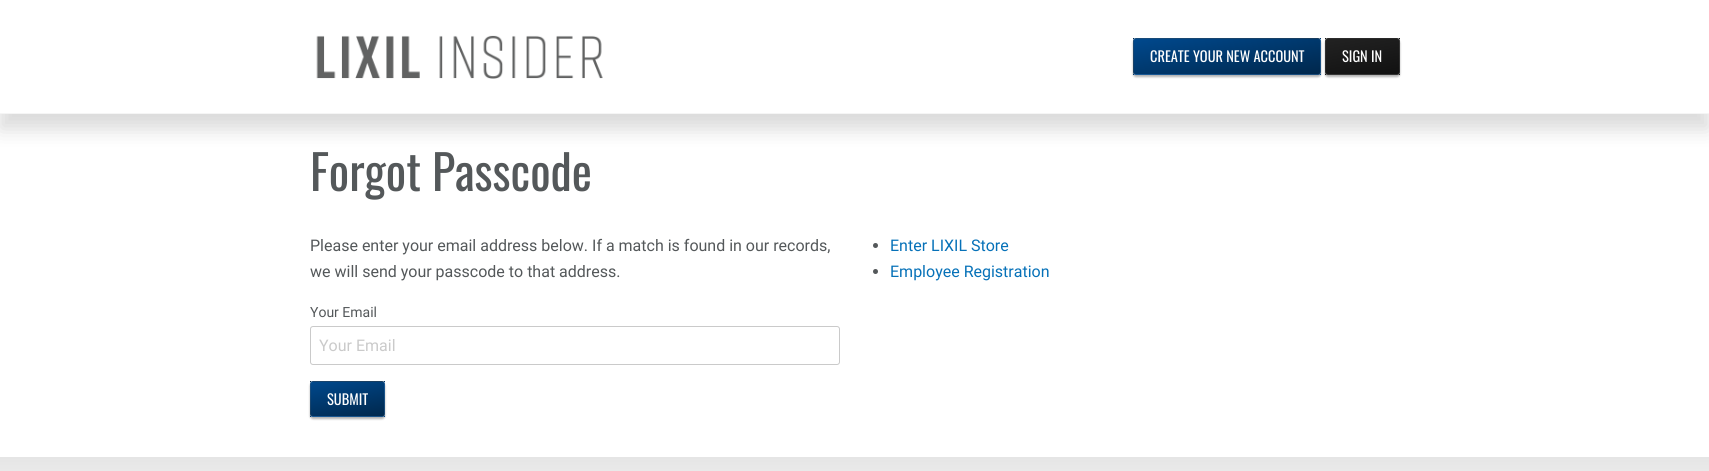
import math
import cairo


def use_color(cr, r, g, b):
  cr.set_source_rgb(r / 255, g / 255, b / 255)

def text(cr, x, y, s, family, size, color, bold=False, italic=False):
  cr.select_font_face(family, cairo.FONT_SLANT_ITALIC if italic else cairo.FONT_SLANT_NORMAL, cairo.FONT_WEIGHT_BOLD if bold else cairo.FONT_WEIGHT_NORMAL)
  cr.set_font_size(size)
  use_color(cr, *color)
  cr.move_to(x, y)
  cr.show_text(s)

def box(cr, x, y, w, h, *color):
  use_color(cr, *color)
  cr.rectangle(x, y, w, h)
  cr.fill()

def round_rect(cr, x, y, w, h, r):
  cr.new_sub_path()
  for i, (u, v) in enumerate([(x + w - r, y + h - r), (x + r, y + h - r), (x + r, y + r), (x + w - r, y + r)]):
    cr.arc(u, v, r, i * math.pi / 2, (i + 1) * math.pi / 2)
  cr.close_path()

def shadow(cr, x, y, w, h, r, blur, alpha):
  cr.push_group_with_content(cairo.CONTENT_ALPHA)
  cr.set_operator(cairo.OPERATOR_SOURCE)
  for i in range(15, -16, -2):
    e = blur * i / 6
    if min(w, h) + 2 * e > 0:
      cr.set_source_rgba(0, 0, 0, alpha * math.erfc((i - 1) / 8.5) / 2)
      round_rect(cr, x - e, y - e, w + 2 * e, h + 2 * e, max(0, min(r + e + blur * .6, min(w, h) / 2 + e)))
      cr.fill()
  cr.mask(cr.pop_group())

def picture(cr, path, x, y, w, h):
  cr.save()
  cr.set_source_surface(cairo.ImageSurface.create_from_png(path), x, y)
  cr.rectangle(x, y, w, h)
  cr.fill()
  cr.restore()

def draw(cr):
  use_color(cr, 255, 255, 255)
  cr.paint()
  use_color(cr, 0, 0, 0)
  shadow(cr, 0, 15, 1709, 114, 0, 10, 0.15)
  box(cr, 0, 0, 1709, 113, 255, 255, 255)
  box(cr, 0, 113, 1709, 1, 245, 245, 245)
  picture(cr, "img_01.png", 316, 35, 287, 44)
  use_color(cr, 0, 0, 0)
  shadow(cr, 1133, 40, 188, 37, 3, 1, 0.3)
  gradient = cairo.LinearGradient(1035, -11, 1047, 54)
  gradient.add_color_stop_rgba(0, 0, 0.282, 0.549, 1)
  gradient.add_color_stop_rgba(1, 0, 0.157, 0.302, 1)
  cr.set_source(gradient)
  cr.rectangle(1133, 38, 1, 1)
  cr.fill()
  cr.save()
  round_rect(cr, 1133, 38, 188, 37, 3)
  cr.clip()
  gradient = cairo.LinearGradient(1221, -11, 1233, 54)
  gradient.add_color_stop_rgba(0, 0, 0.282, 0.549, 1)
  gradient.add_color_stop_rgba(1, 0, 0.157, 0.302, 1)
  cr.set_source(gradient)
  cr.rectangle(1134, 38, 186, 1)
  cr.fill()
  cr.restore()
  gradient = cairo.LinearGradient(1407, -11, 1419, 54)
  gradient.add_color_stop_rgba(0, 0, 0.282, 0.549, 1)
  gradient.add_color_stop_rgba(1, 0, 0.157, 0.302, 1)
  cr.set_source(gradient)
  cr.rectangle(1320, 38, 1, 1)
  cr.fill()
  cr.save()
  round_rect(cr, 1133, 38, 188, 37, 3)
  cr.clip()
  gradient = cairo.LinearGradient(1035, 24, 1047, 89)
  gradient.add_color_stop_rgba(0, 0, 0.282, 0.549, 1)
  gradient.add_color_stop_rgba(1, 0, 0.157, 0.302, 1)
  cr.set_source(gradient)
  cr.rectangle(1133, 39, 1, 35)
  cr.fill()
  cr.restore()
  gradient = cairo.LinearGradient(1221, 24, 1233, 89)
  gradient.add_color_stop_rgba(0, 0, 0.282, 0.549, 1)
  gradient.add_color_stop_rgba(1, 0, 0.157, 0.302, 1)
  cr.set_source(gradient)
  cr.rectangle(1134, 39, 186, 35)
  cr.fill()
  cr.save()
  round_rect(cr, 1133, 38, 188, 37, 3)
  cr.clip()
  gradient = cairo.LinearGradient(1407, 24, 1419, 89)
  gradient.add_color_stop_rgba(0, 0, 0.282, 0.549, 1)
  gradient.add_color_stop_rgba(1, 0, 0.157, 0.302, 1)
  cr.set_source(gradient)
  cr.rectangle(1320, 39, 1, 35)
  cr.fill()
  cr.restore()
  gradient = cairo.LinearGradient(1035, 59, 1047, 124)
  gradient.add_color_stop_rgba(0, 0, 0.282, 0.549, 1)
  gradient.add_color_stop_rgba(1, 0, 0.157, 0.302, 1)
  cr.set_source(gradient)
  cr.rectangle(1133, 74, 1, 1)
  cr.fill()
  cr.save()
  round_rect(cr, 1133, 38, 188, 37, 3)
  cr.clip()
  gradient = cairo.LinearGradient(1221, 59, 1233, 124)
  gradient.add_color_stop_rgba(0, 0, 0.282, 0.549, 1)
  gradient.add_color_stop_rgba(1, 0, 0.157, 0.302, 1)
  cr.set_source(gradient)
  cr.rectangle(1134, 74, 186, 1)
  cr.fill()
  cr.restore()
  gradient = cairo.LinearGradient(1407, 59, 1419, 124)
  gradient.add_color_stop_rgba(0, 0, 0.282, 0.549, 1)
  gradient.add_color_stop_rgba(1, 0, 0.157, 0.302, 1)
  cr.set_source(gradient)
  cr.rectangle(1320, 74, 1, 1)
  cr.fill()
  round_rect(cr, 1133.5, 38.5, 187, 36, 2.5)
  cr.set_source_rgba(1, 1, 1, 0.1)
  cr.set_line_width(1)
  cr.stroke()
  use_color(cr, 0, 0, 0)
  shadow(cr, 1325, 40, 75, 37, 3, 1, 0.3)
  gradient = cairo.LinearGradient(1285, -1.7, 1294, 45)
  gradient.add_color_stop_rgba(0, 0.133, 0.133, 0.133, 1)
  gradient.add_color_stop_rgba(1, 0.067, 0.067, 0.067, 1)
  cr.set_source(gradient)
  cr.rectangle(1325, 38, 1, 1)
  cr.fill()
  cr.save()
  round_rect(cr, 1325, 38, 75, 37, 3)
  cr.clip()
  gradient = cairo.LinearGradient(1358, -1.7, 1367, 45)
  gradient.add_color_stop_rgba(0, 0.133, 0.133, 0.133, 1)
  gradient.add_color_stop_rgba(1, 0.067, 0.067, 0.067, 1)
  cr.set_source(gradient)
  cr.rectangle(1326, 38, 73, 1)
  cr.fill()
  cr.restore()
  gradient = cairo.LinearGradient(1431, -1.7, 1440, 45)
  gradient.add_color_stop_rgba(0, 0.133, 0.133, 0.133, 1)
  gradient.add_color_stop_rgba(1, 0.067, 0.067, 0.067, 1)
  cr.set_source(gradient)
  cr.rectangle(1399, 38, 1, 1)
  cr.fill()
  cr.save()
  round_rect(cr, 1325, 38, 75, 37, 3)
  cr.clip()
  gradient = cairo.LinearGradient(1285, 33, 1294, 80)
  gradient.add_color_stop_rgba(0, 0.133, 0.133, 0.133, 1)
  gradient.add_color_stop_rgba(1, 0.067, 0.067, 0.067, 1)
  cr.set_source(gradient)
  cr.rectangle(1325, 39, 1, 35)
  cr.fill()
  cr.restore()
  gradient = cairo.LinearGradient(1358, 33, 1367, 80)
  gradient.add_color_stop_rgba(0, 0.133, 0.133, 0.133, 1)
  gradient.add_color_stop_rgba(1, 0.067, 0.067, 0.067, 1)
  cr.set_source(gradient)
  cr.rectangle(1326, 39, 73, 35)
  cr.fill()
  cr.save()
  round_rect(cr, 1325, 38, 75, 37, 3)
  cr.clip()
  gradient = cairo.LinearGradient(1431, 33, 1440, 80)
  gradient.add_color_stop_rgba(0, 0.133, 0.133, 0.133, 1)
  gradient.add_color_stop_rgba(1, 0.067, 0.067, 0.067, 1)
  cr.set_source(gradient)
  cr.rectangle(1399, 39, 1, 35)
  cr.fill()
  cr.restore()
  gradient = cairo.LinearGradient(1285, 68, 1294, 115)
  gradient.add_color_stop_rgba(0, 0.133, 0.133, 0.133, 1)
  gradient.add_color_stop_rgba(1, 0.067, 0.067, 0.067, 1)
  cr.set_source(gradient)
  cr.rectangle(1325, 74, 1, 1)
  cr.fill()
  cr.save()
  round_rect(cr, 1325, 38, 75, 37, 3)
  cr.clip()
  gradient = cairo.LinearGradient(1358, 68, 1367, 115)
  gradient.add_color_stop_rgba(0, 0.133, 0.133, 0.133, 1)
  gradient.add_color_stop_rgba(1, 0.067, 0.067, 0.067, 1)
  cr.set_source(gradient)
  cr.rectangle(1326, 74, 73, 1)
  cr.fill()
  cr.restore()
  gradient = cairo.LinearGradient(1431, 68, 1440, 115)
  gradient.add_color_stop_rgba(0, 0.133, 0.133, 0.133, 1)
  gradient.add_color_stop_rgba(1, 0.067, 0.067, 0.067, 1)
  cr.set_source(gradient)
  cr.rectangle(1399, 74, 1, 1)
  cr.fill()
  round_rect(cr, 1325.5, 38.5, 74, 36, 2.5)
  cr.set_source_rgba(1, 1, 1, 0.1)
  cr.stroke()
  use_color(cr, 84, 88, 90)
  cr.arc(875.5, 245.5, 2.5, 0, 2 * math.pi)
  cr.fill()
  cr.arc(875.5, 271.5, 2.5, 0, 2 * math.pi)
  cr.fill()
  round_rect(cr, 310.5, 326.5, 529, 38, 2.5)
  use_color(cr, 202, 202, 202)
  cr.stroke()
  use_color(cr, 0, 0, 0)
  shadow(cr, 310, 383, 75, 36, 3, 1, 0.3)
  gradient = cairo.LinearGradient(270, 342, 279, 388)
  gradient.add_color_stop_rgba(0, 0, 0.282, 0.549, 1)
  gradient.add_color_stop_rgba(1, 0, 0.157, 0.302, 1)
  cr.set_source(gradient)
  cr.rectangle(310, 381, 1, 1)
  cr.fill()
  cr.save()
  round_rect(cr, 310, 381, 75, 36, 3)
  cr.clip()
  gradient = cairo.LinearGradient(343, 342, 352, 388)
  gradient.add_color_stop_rgba(0, 0, 0.282, 0.549, 1)
  gradient.add_color_stop_rgba(1, 0, 0.157, 0.302, 1)
  cr.set_source(gradient)
  cr.rectangle(311, 381, 73, 1)
  cr.fill()
  cr.restore()
  gradient = cairo.LinearGradient(416, 342, 425, 388)
  gradient.add_color_stop_rgba(0, 0, 0.282, 0.549, 1)
  gradient.add_color_stop_rgba(1, 0, 0.157, 0.302, 1)
  cr.set_source(gradient)
  cr.rectangle(384, 381, 1, 1)
  cr.fill()
  cr.save()
  round_rect(cr, 310, 381, 75, 36, 3)
  cr.clip()
  gradient = cairo.LinearGradient(270, 376, 279, 422)
  gradient.add_color_stop_rgba(0, 0, 0.282, 0.549, 1)
  gradient.add_color_stop_rgba(1, 0, 0.157, 0.302, 1)
  cr.set_source(gradient)
  cr.rectangle(310, 382, 1, 34)
  cr.fill()
  cr.restore()
  gradient = cairo.LinearGradient(343, 376, 352, 422)
  gradient.add_color_stop_rgba(0, 0, 0.282, 0.549, 1)
  gradient.add_color_stop_rgba(1, 0, 0.157, 0.302, 1)
  cr.set_source(gradient)
  cr.rectangle(311, 382, 73, 34)
  cr.fill()
  cr.save()
  round_rect(cr, 310, 381, 75, 36, 3)
  cr.clip()
  gradient = cairo.LinearGradient(416, 376, 425, 422)
  gradient.add_color_stop_rgba(0, 0, 0.282, 0.549, 1)
  gradient.add_color_stop_rgba(1, 0, 0.157, 0.302, 1)
  cr.set_source(gradient)
  cr.rectangle(384, 382, 1, 34)
  cr.fill()
  cr.restore()
  gradient = cairo.LinearGradient(270, 410, 279, 456)
  gradient.add_color_stop_rgba(0, 0, 0.282, 0.549, 1)
  gradient.add_color_stop_rgba(1, 0, 0.157, 0.302, 1)
  cr.set_source(gradient)
  cr.rectangle(310, 416, 1, 1)
  cr.fill()
  cr.save()
  round_rect(cr, 310, 381, 75, 36, 3)
  cr.clip()
  gradient = cairo.LinearGradient(343, 410, 352, 456)
  gradient.add_color_stop_rgba(0, 0, 0.282, 0.549, 1)
  gradient.add_color_stop_rgba(1, 0, 0.157, 0.302, 1)
  cr.set_source(gradient)
  cr.rectangle(311, 416, 73, 1)
  cr.fill()
  cr.restore()
  gradient = cairo.LinearGradient(416, 410, 425, 456)
  gradient.add_color_stop_rgba(0, 0, 0.282, 0.549, 1)
  gradient.add_color_stop_rgba(1, 0, 0.157, 0.302, 1)
  cr.set_source(gradient)
  cr.rectangle(384, 416, 1, 1)
  cr.fill()
  round_rect(cr, 310.5, 381.5, 74, 35, 2.5)
  cr.set_source_rgba(1, 1, 1, 0.1)
  cr.stroke()
  gradient = cairo.LinearGradient(855, 457, 855, 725)
  gradient.add_color_stop_rgba(0, 0.898, 0.898, 0.898, 1)
  gradient.add_color_stop_rgba(0.2, 0.961, 0.961, 0.961, 1)
  cr.set_source(gradient)
  cr.rectangle(0, 457, 1709, 14)
  cr.fill()
  text(cr, 1150, 62, "CREATE YOUR NEW ACCOUNT", "Oswald", 14.4, (254, 254, 254))
  text(cr, 1342, 62, "SIGN IN", "Oswald", 14.4, (254, 254, 254))
  text(cr, 310, 191, "Forgot Passcode", "Oswald", 48, (84, 88, 90))
  text(cr, 310, 251, "Please enter your email address below. If a match is found in our records,", "Roboto", 16, (84, 88, 90))
  text(cr, 310, 277, "we will send your passcode to that address.", "Roboto", 16, (84, 88, 90))
  text(cr, 890, 251, "Enter LIXIL Store", "Roboto", 16, (6, 113, 184))
  text(cr, 890, 277, "Employee Registration", "Roboto", 16, (6, 113, 184))
  text(cr, 310, 317, "Your Email", "Roboto", 14, (84, 88, 90))
  text(cr, 319, 351, "Your Email", "Roboto", 16, (202, 202, 202))
  text(cr, 327, 405, "SUBMIT", "Oswald", 14.4, (254, 254, 254))


surface = cairo.ImageSurface(cairo.FORMAT_RGB24, 1709, 471)
cr = cairo.Context(surface)
options = cairo.FontOptions()
options.set_hint_metrics(cairo.HINT_METRICS_OFF)
options.set_hint_style(cairo.HINT_STYLE_NONE)
cr.set_font_options(options)
cr.set_miter_limit(4)
draw(cr)
surface.write_to_png("out.png")
